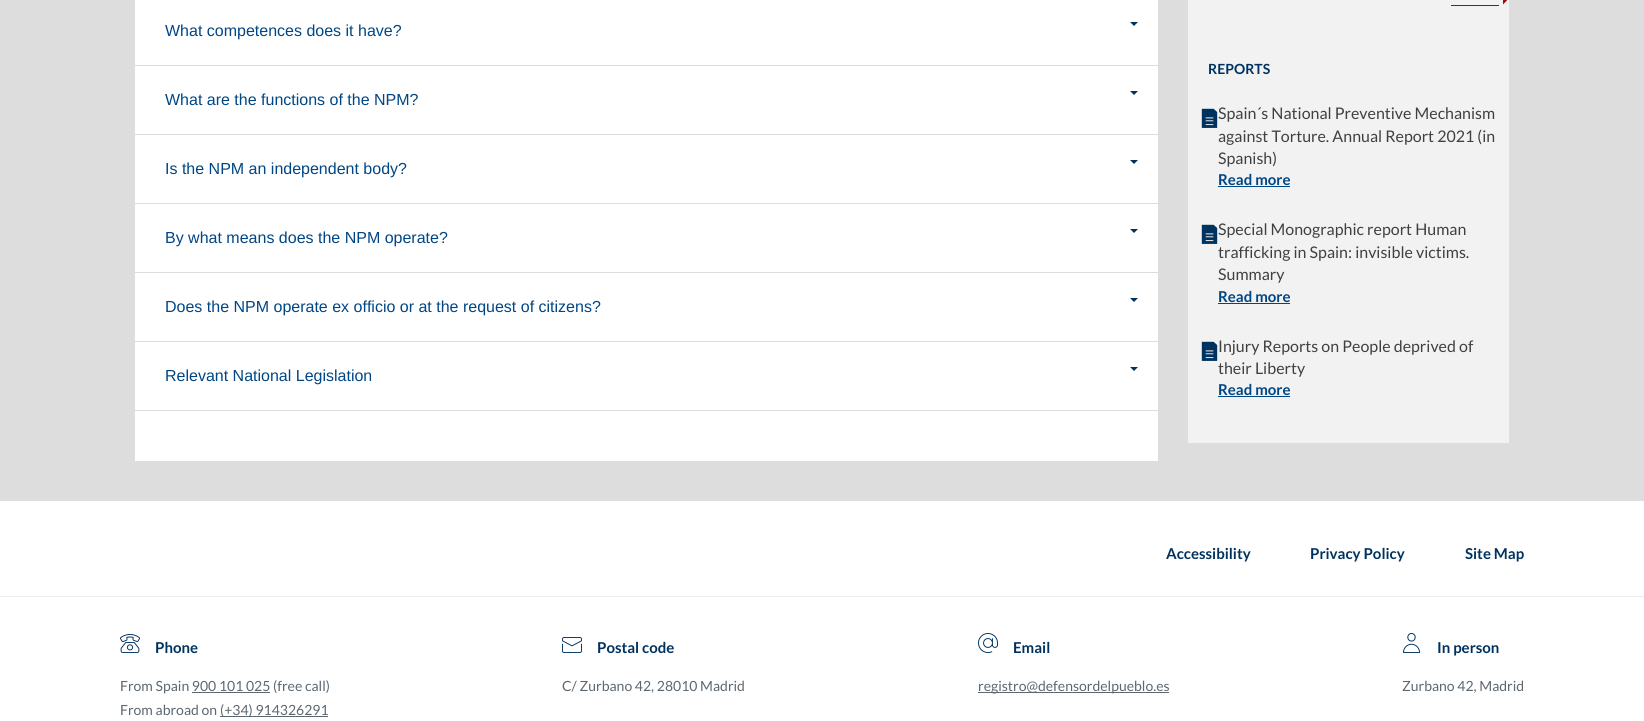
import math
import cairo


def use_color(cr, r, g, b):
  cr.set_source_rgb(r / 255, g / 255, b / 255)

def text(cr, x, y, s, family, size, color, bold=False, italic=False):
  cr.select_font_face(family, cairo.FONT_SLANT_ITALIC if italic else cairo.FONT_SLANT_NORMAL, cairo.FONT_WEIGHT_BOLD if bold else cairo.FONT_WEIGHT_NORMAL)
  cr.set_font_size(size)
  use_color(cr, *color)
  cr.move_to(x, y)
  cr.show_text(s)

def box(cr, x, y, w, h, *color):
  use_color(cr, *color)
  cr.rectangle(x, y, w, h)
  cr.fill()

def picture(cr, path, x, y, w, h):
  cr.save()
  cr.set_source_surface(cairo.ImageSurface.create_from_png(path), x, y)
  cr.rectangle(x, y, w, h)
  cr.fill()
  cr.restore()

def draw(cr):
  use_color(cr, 221, 221, 221)
  cr.paint()
  box(cr, 135, 0, 1023, 461, 255, 255, 255)
  use_color(cr, 0, 50, 95)
  cr.new_path()
  cr.move_to(1130, 22)
  cr.line_to(1138, 22)
  cr.line_to(1134, 26)
  cr.close_path()
  cr.fill()
  box(cr, 135, 65, 1023, 1, 221, 221, 221)
  use_color(cr, 0, 50, 95)
  cr.new_path()
  cr.move_to(1130, 91)
  cr.line_to(1138, 91)
  cr.line_to(1134, 95)
  cr.close_path()
  cr.fill()
  box(cr, 135, 134, 1023, 1, 221, 221, 221)
  use_color(cr, 0, 50, 95)
  cr.new_path()
  cr.move_to(1130, 160)
  cr.line_to(1138, 160)
  cr.line_to(1134, 164)
  cr.close_path()
  cr.fill()
  box(cr, 135, 203, 1023, 1, 221, 221, 221)
  use_color(cr, 0, 50, 95)
  cr.new_path()
  cr.move_to(1130, 229)
  cr.line_to(1138, 229)
  cr.line_to(1134, 233)
  cr.close_path()
  cr.fill()
  box(cr, 135, 272, 1023, 1, 221, 221, 221)
  use_color(cr, 0, 50, 95)
  cr.new_path()
  cr.move_to(1130, 298)
  cr.line_to(1138, 298)
  cr.line_to(1134, 302)
  cr.close_path()
  cr.fill()
  box(cr, 135, 341, 1023, 1, 221, 221, 221)
  box(cr, 135, 410, 1023, 1, 221, 221, 221)
  use_color(cr, 0, 50, 95)
  cr.new_path()
  cr.move_to(1130, 367)
  cr.line_to(1138, 367)
  cr.line_to(1134, 371)
  cr.close_path()
  cr.fill()
  box(cr, 1188, 0, 321, 443, 242, 242, 242)
  use_color(cr, 156, 12, 12)
  cr.new_path()
  cr.move_to(1503, 4.5)
  cr.line_to(1503, -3.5)
  cr.line_to(1507, 0.5)
  cr.close_path()
  cr.fill()
  box(cr, 1451, 5, 48, 1, 156, 12, 12)
  picture(cr, "img_01.png", 1201, 108, 17, 20)
  box(cr, 1218, 186, 72, 1, 0, 70, 133)
  picture(cr, "img_01.png", 1201, 224, 17, 20)
  box(cr, 1218, 303, 72, 1, 0, 70, 133)
  picture(cr, "img_01.png", 1201, 341, 17, 20)
  box(cr, 1218, 396, 72, 1, 0, 70, 133)
  box(cr, 0, 501, 1644, 220, 255, 255, 255)
  box(cr, 0, 596, 1644, 1, 238, 238, 238)
  picture(cr, "img_02.png", 120, 634, 20, 19)
  box(cr, 192, 692, 78, 1, 92, 103, 113)
  box(cr, 220, 716, 108, 1, 92, 103, 113)
  picture(cr, "img_03.png", 562, 637, 20, 16)
  picture(cr, "img_04.png", 978, 633, 20, 20)
  box(cr, 978, 692, 191, 1, 92, 103, 113)
  picture(cr, "img_05.png", 1403, 633, 17, 20)
  text(cr, 165, 36, "What competences does it have?", "Liberation Sans", 16, (0, 70, 133))
  text(cr, 165, 105, "What are the functions of the NPM?", "Liberation Sans", 16, (0, 70, 133))
  text(cr, 165, 174, "Is the NPM an independent body?", "Liberation Sans", 16, (0, 70, 133))
  text(cr, 165, 243, "By what means does the NPM operate?", "Liberation Sans", 16, (0, 70, 133))
  text(cr, 165, 312, "Does the NPM operate ex officio or at the request of citizens?", "Liberation Sans", 16, (0, 70, 133))
  text(cr, 165, 381, "Relevant National Legislation", "Liberation Sans", 16, (0, 70, 133))
  text(cr, 1208, 74, "REPORTS", "Lato", 14, (0, 50, 95), bold=True)
  text(cr, 1218, 119, "Spain´s National Preventive Mechanism", "Lato", 16, (64, 64, 64))
  text(cr, 1218, 142, "against Torture. Annual Report 2021 (in", "Lato", 16, (64, 64, 64))
  text(cr, 1218, 164, "Spanish)", "Lato", 16, (64, 64, 64))
  text(cr, 1218, 185, "Read more", "Lato", 15, (0, 70, 133), bold=True)
  text(cr, 1218, 235, "Special Monographic report Human", "Lato", 16, (64, 64, 64))
  text(cr, 1218, 258, "trafficking in Spain: invisible victims.", "Lato", 16, (64, 64, 64))
  text(cr, 1218, 280, "Summary", "Lato", 16, (64, 64, 64))
  text(cr, 1218, 302, "Read more", "Lato", 15, (0, 70, 133), bold=True)
  text(cr, 1218, 352, "Injury Reports on People deprived of", "Lato", 16, (64, 64, 64))
  text(cr, 1218, 374, "their Liberty", "Lato", 16, (64, 64, 64))
  text(cr, 1218, 395, "Read more", "Lato", 15, (0, 70, 133), bold=True)
  text(cr, 1166, 559, "Accessibility", "Lato", 15, (0, 50, 95), bold=True)
  text(cr, 1310, 559, "Privacy Policy", "Lato", 15, (0, 50, 95), bold=True)
  text(cr, 1465, 559, "Site Map", "Lato", 15, (0, 50, 95), bold=True)
  text(cr, 155, 653, "Phone", "Lato", 15, (0, 50, 95), bold=True)
  text(cr, 120, 691, "From Spain 900 101 025 (free call)", "Lato", 14, (92, 103, 113))
  text(cr, 120, 715, "From abroad on", "Lato", 14, (92, 103, 113))
  text(cr, 220, 715, "(+34) 914326291", "Lato", 14, (92, 103, 113))
  text(cr, 597, 653, "Postal code", "Lato", 15, (0, 50, 95), bold=True)
  text(cr, 562, 691, "C/ Zurbano 42, 28010 Madrid", "Lato", 14, (92, 103, 113))
  text(cr, 1013, 653, "Email", "Lato", 15, (0, 50, 95), bold=True)
  text(cr, 978, 691, "registro@defensordelpueblo.es", "Lato", 14, (92, 103, 113))
  text(cr, 1437, 653, "In person", "Lato", 15, (0, 50, 95), bold=True)
  text(cr, 1402, 691, "Zurbano 42, Madrid", "Lato", 14, (92, 103, 113))


surface = cairo.ImageSurface(cairo.FORMAT_RGB24, 1644, 721)
cr = cairo.Context(surface)
options = cairo.FontOptions()
options.set_hint_metrics(cairo.HINT_METRICS_OFF)
options.set_hint_style(cairo.HINT_STYLE_NONE)
cr.set_font_options(options)
cr.set_miter_limit(4)
draw(cr)
surface.write_to_png("out.png")
